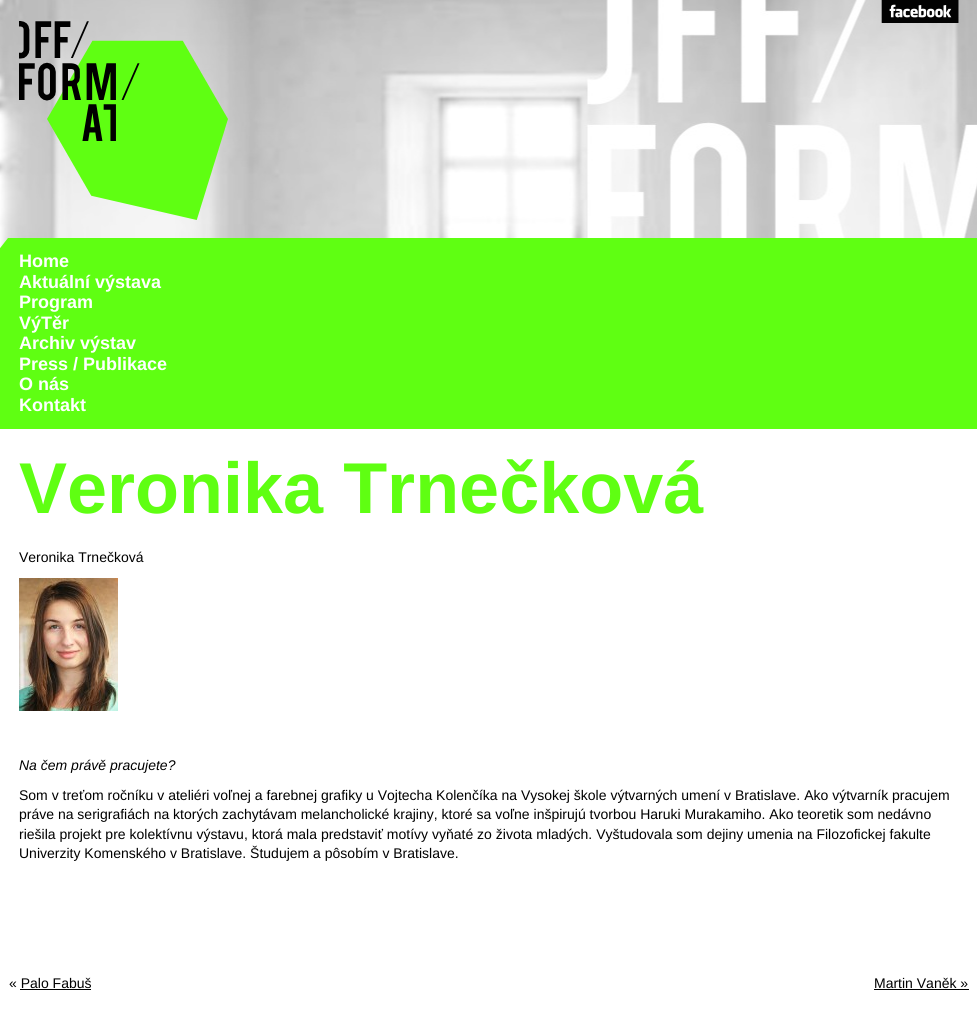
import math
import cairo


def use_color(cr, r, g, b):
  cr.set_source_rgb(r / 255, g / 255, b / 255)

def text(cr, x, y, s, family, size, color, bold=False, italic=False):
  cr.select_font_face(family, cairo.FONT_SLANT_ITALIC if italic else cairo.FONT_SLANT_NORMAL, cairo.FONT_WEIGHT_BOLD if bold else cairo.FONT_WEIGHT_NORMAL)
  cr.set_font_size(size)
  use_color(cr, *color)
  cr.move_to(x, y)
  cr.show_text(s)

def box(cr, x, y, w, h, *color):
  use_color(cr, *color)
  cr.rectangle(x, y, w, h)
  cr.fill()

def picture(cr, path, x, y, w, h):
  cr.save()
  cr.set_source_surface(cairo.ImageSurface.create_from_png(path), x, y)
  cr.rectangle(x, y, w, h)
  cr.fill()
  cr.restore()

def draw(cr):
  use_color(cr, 255, 255, 255)
  cr.paint()
  picture(cr, "img_01.png", 0, 0, 977, 249)
  picture(cr, "img_02.png", 882, 0, 76, 23)
  picture(cr, "img_03.png", 19, 21, 209, 199)
  use_color(cr, 95, 255, 18)
  cr.new_path()
  cr.move_to(-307, 338)
  cr.line_to(-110, 388)
  cr.line_to(8, 238)
  cr.line_to(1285, 238)
  cr.line_to(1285, 429)
  cr.line_to(-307, 429)
  cr.close_path()
  cr.fill()
  picture(cr, "img_04.png", 19, 578, 99, 133)
  box(cr, 20, 989, 71, 1, 0, 0, 0)
  box(cr, 874, 989, 95, 1, 0, 0, 0)
  text(cr, 19, 267, "Home", "Liberation Sans", 18, (255, 255, 255), bold=True)
  text(cr, 19, 288, "Aktuální výstava", "Liberation Sans", 18, (255, 255, 255), bold=True)
  text(cr, 19, 308, "Program", "Liberation Sans", 18, (255, 255, 255), bold=True)
  text(cr, 19, 329, "VýTěr", "Liberation Sans", 18, (255, 255, 255), bold=True)
  text(cr, 19, 349, "Archiv výstav", "Liberation Sans", 18, (255, 255, 255), bold=True)
  text(cr, 19, 370, "Press / Publikace", "Liberation Sans", 18, (255, 255, 255), bold=True)
  text(cr, 19, 390, "O nás", "Liberation Sans", 18, (255, 255, 255), bold=True)
  text(cr, 19, 411, "Kontakt", "Liberation Sans", 18, (255, 255, 255), bold=True)
  text(cr, 19, 513, "Veronika Trnečková", "Liberation Sans", 72, (95, 255, 18), bold=True)
  text(cr, 19, 562, "Veronika Trnečková", "Liberation Sans", 14, (0, 0, 0))
  text(cr, 19, 770, "Na čem právě pracujete?", "Liberation Sans", 14, (0, 0, 0), italic=True)
  text(cr, 19, 800, "Som v treťom ročníku v ateliéri voľnej a farebnej grafiky u Vojtecha Kolenčíka na Vysokej škole výtvarných umení v Bratislave. Ako výtvarník pracujem", "Liberation Sans", 14, (0, 0, 0))
  text(cr, 19, 819, "práve na serigrafiách na ktorých zachytávam melancholické krajiny, ktoré sa voľne inšpirujú tvorbou Haruki Murakamiho. Ako teoretik som nedávno", "Liberation Sans", 14, (0, 0, 0))
  text(cr, 19, 839, "riešila projekt pre kolektívnu výstavu, ktorá mala predstaviť motívy vyňaté zo života mladých. Vyštudovala som dejiny umenia na Filozofickej fakulte", "Liberation Sans", 14, (0, 0, 0))
  text(cr, 19, 858, "Univerzity Komenského v Bratislave. Študujem a pôsobím v Bratislave.", "Liberation Sans", 14, (0, 0, 0))
  text(cr, 9, 988, "« Palo Fabuš", "Liberation Sans", 14, (0, 0, 0))
  text(cr, 874, 988, "Martin Vaněk »", "Liberation Sans", 14, (0, 0, 0))


surface = cairo.ImageSurface(cairo.FORMAT_RGB24, 977, 1014)
cr = cairo.Context(surface)
options = cairo.FontOptions()
options.set_hint_metrics(cairo.HINT_METRICS_OFF)
options.set_hint_style(cairo.HINT_STYLE_NONE)
cr.set_font_options(options)
cr.set_miter_limit(4)
draw(cr)
surface.write_to_png("out.png")
